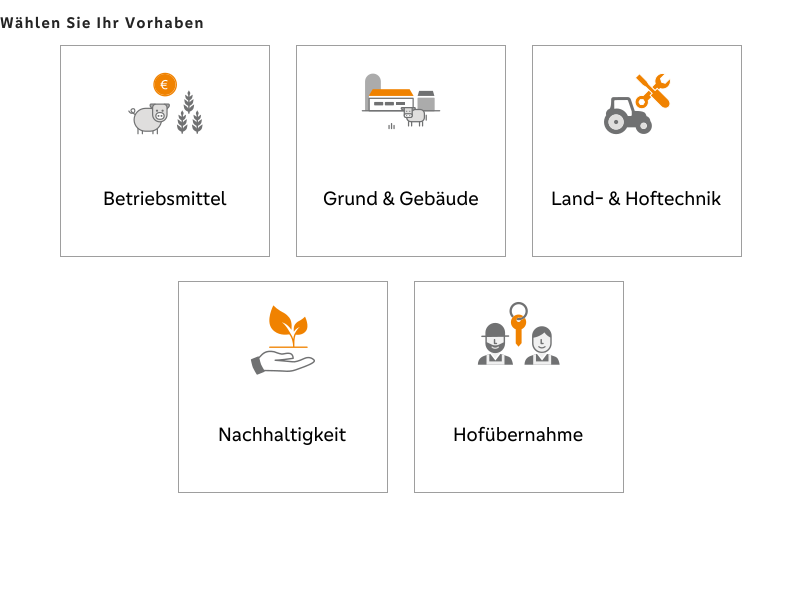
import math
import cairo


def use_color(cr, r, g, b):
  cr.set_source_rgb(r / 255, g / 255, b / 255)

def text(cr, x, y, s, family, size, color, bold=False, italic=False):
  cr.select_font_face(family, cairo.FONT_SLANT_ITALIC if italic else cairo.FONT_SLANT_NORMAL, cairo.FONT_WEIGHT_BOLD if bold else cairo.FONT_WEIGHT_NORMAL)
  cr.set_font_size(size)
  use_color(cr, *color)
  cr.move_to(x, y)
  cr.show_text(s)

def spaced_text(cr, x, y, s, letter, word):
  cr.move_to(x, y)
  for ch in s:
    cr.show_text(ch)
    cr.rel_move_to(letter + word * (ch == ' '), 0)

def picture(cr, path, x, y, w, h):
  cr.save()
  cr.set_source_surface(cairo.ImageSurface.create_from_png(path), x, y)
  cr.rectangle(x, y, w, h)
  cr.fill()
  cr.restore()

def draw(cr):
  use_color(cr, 255, 255, 255)
  cr.paint()
  cr.rectangle(60.5, 45.5, 209, 211)
  use_color(cr, 158, 158, 158)
  cr.set_line_width(1)
  cr.stroke()
  picture(cr, "img_01.png", 128, 72, 75, 63)
  cr.rectangle(296.5, 45.5, 209, 211)
  cr.stroke()
  picture(cr, "img_02.png", 361, 73, 80, 57)
  cr.rectangle(532.5, 45.5, 209, 211)
  cr.stroke()
  picture(cr, "img_03.png", 604, 73, 67, 62)
  cr.rectangle(178.5, 281.5, 209, 211)
  cr.stroke()
  picture(cr, "img_04.png", 250, 305, 65, 70)
  cr.rectangle(414.5, 281.5, 209, 211)
  cr.stroke()
  picture(cr, "img_05.png", 477, 301, 83, 64)
  cr.select_font_face("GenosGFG", cairo.FONT_SLANT_NORMAL, cairo.FONT_WEIGHT_BOLD)
  cr.set_font_size(16)
  use_color(cr, 36, 36, 36)
  spaced_text(cr, 0, 28, "Wählen Sie Ihr Vorhaben", 1.5, 0)
  text(cr, 103, 205, "Betriebsmittel", "GenosGFG", 20, (0, 0, 0))
  text(cr, 323, 205, "Grund & Gebäude", "GenosGFG", 20, (0, 0, 0))
  text(cr, 551, 205, "Land- & Hoftechnik", "GenosGFG", 20, (0, 0, 0))
  text(cr, 218, 441, "Nachhaltigkeit", "GenosGFG", 20, (0, 0, 0))
  text(cr, 453, 441, "Hofübernahme", "GenosGFG", 20, (0, 0, 0))


surface = cairo.ImageSurface(cairo.FORMAT_RGB24, 803, 594)
cr = cairo.Context(surface)
options = cairo.FontOptions()
options.set_hint_metrics(cairo.HINT_METRICS_OFF)
options.set_hint_style(cairo.HINT_STYLE_NONE)
cr.set_font_options(options)
cr.set_miter_limit(4)
draw(cr)
surface.write_to_png("out.png")
